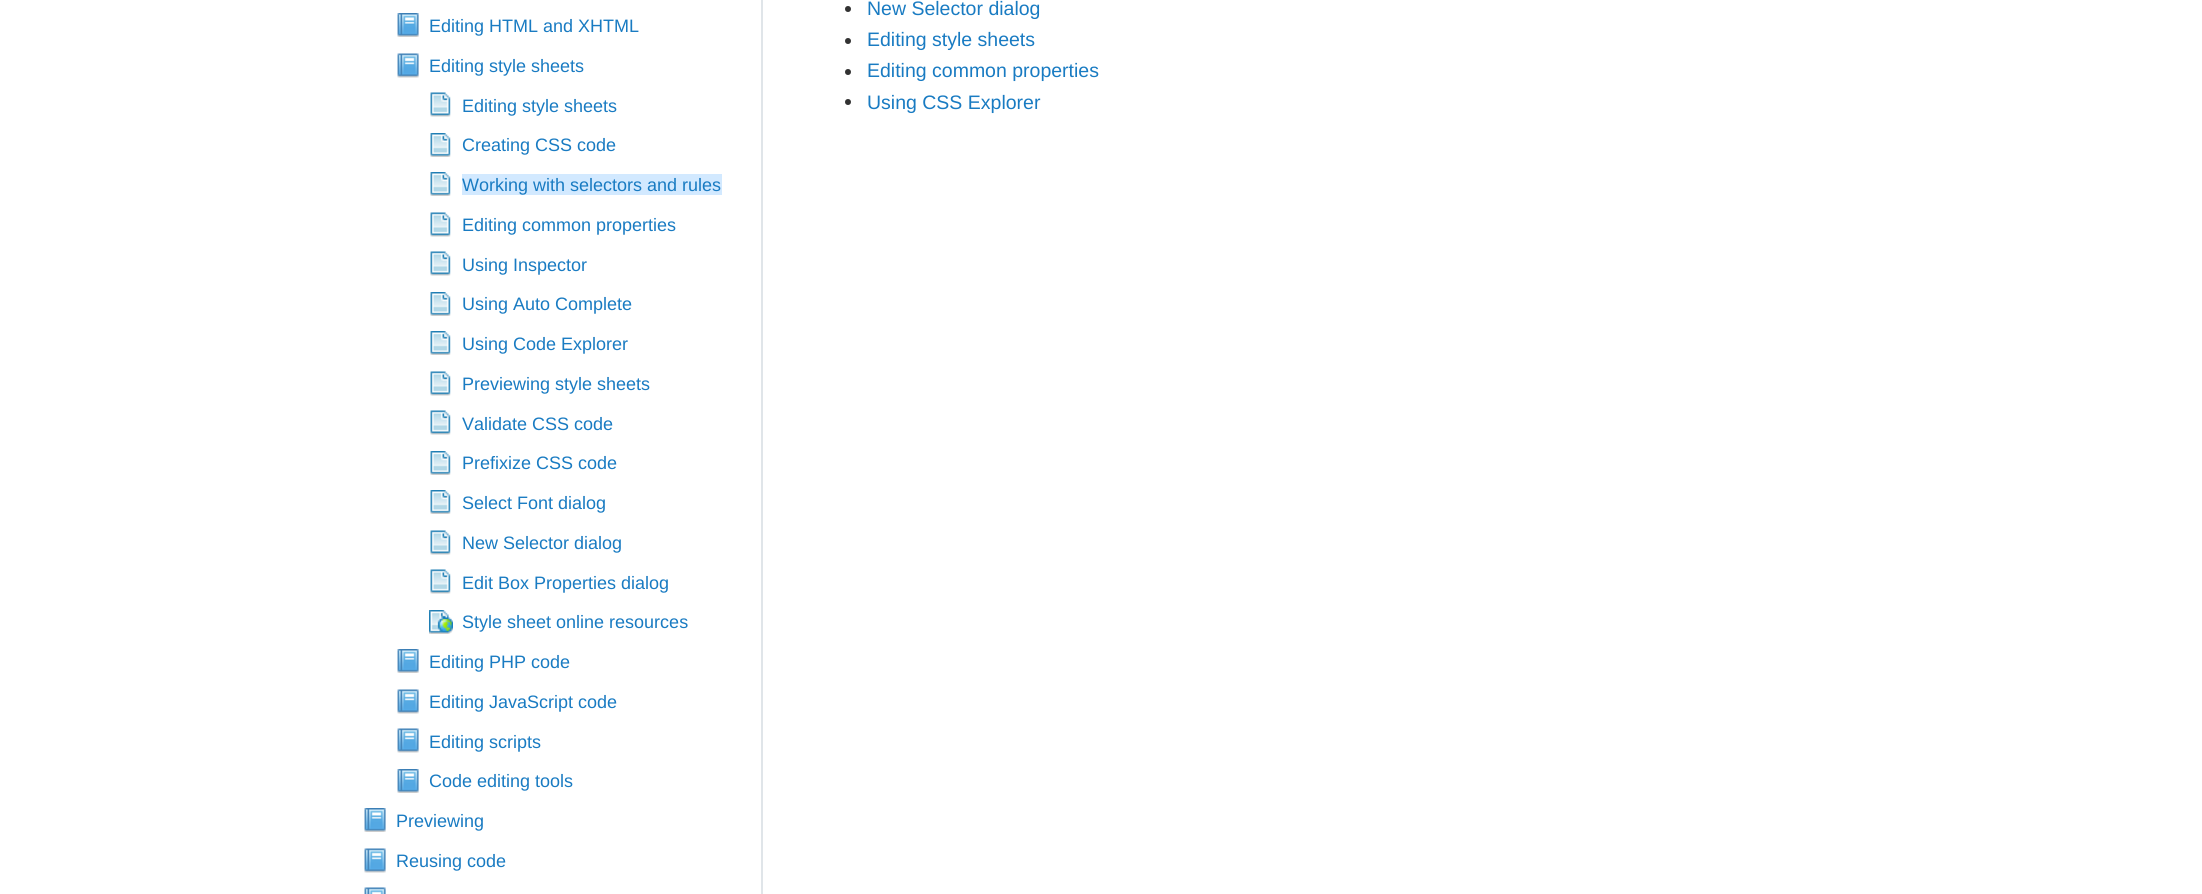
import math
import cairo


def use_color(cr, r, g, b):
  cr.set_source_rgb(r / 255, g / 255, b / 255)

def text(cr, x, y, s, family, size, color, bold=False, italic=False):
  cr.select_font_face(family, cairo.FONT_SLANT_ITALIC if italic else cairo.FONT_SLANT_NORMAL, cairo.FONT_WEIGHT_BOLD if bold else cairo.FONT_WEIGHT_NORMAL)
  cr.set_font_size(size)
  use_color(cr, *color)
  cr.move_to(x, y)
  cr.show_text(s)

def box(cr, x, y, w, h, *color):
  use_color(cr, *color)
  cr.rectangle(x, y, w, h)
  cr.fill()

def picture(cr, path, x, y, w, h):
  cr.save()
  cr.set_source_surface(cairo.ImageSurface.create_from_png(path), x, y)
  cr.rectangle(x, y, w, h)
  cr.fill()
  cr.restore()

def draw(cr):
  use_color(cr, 255, 255, 255)
  cr.paint()
  box(cr, 761, 0, 2, 894, 224, 229, 233)
  picture(cr, "img_01.png", 397, 13, 22, 24)
  picture(cr, "img_02.png", 397, 53, 22, 25)
  picture(cr, "img_03.png", 430, 92, 21, 25)
  picture(cr, "img_04.png", 430, 133, 21, 24)
  picture(cr, "img_04.png", 430, 172, 21, 24)
  box(cr, 462, 174, 260, 21, 210, 233, 255)
  picture(cr, "img_03.png", 430, 212, 21, 25)
  picture(cr, "img_03.png", 430, 251, 21, 25)
  picture(cr, "img_04.png", 430, 292, 21, 24)
  picture(cr, "img_04.png", 430, 331, 21, 24)
  picture(cr, "img_03.png", 430, 371, 21, 25)
  picture(cr, "img_03.png", 430, 410, 21, 25)
  picture(cr, "img_04.png", 430, 451, 21, 24)
  picture(cr, "img_04.png", 430, 490, 21, 24)
  picture(cr, "img_03.png", 430, 530, 21, 25)
  picture(cr, "img_03.png", 430, 569, 21, 25)
  picture(cr, "img_05.png", 429, 610, 24, 24)
  picture(cr, "img_01.png", 397, 649, 22, 24)
  picture(cr, "img_02.png", 397, 689, 22, 25)
  picture(cr, "img_02.png", 397, 728, 22, 25)
  picture(cr, "img_01.png", 397, 769, 22, 24)
  picture(cr, "img_01.png", 364, 808, 22, 24)
  picture(cr, "img_02.png", 364, 848, 22, 25)
  picture(cr, "img_06.png", 364, 887, 22, 7)
  use_color(cr, 50, 50, 50)
  cr.arc(848, 9, 3, 0, 2 * math.pi)
  cr.fill()
  cr.arc(848, 41, 3, 0, 2 * math.pi)
  cr.fill()
  cr.arc(848, 72, 3, 0, 2 * math.pi)
  cr.fill()
  cr.arc(848, 102, 3, 0, 2 * math.pi)
  cr.fill()
  text(cr, 429, 32, "Editing HTML and XHTML", "Liberation Sans", 18, (25, 123, 194))
  text(cr, 429, 72, "Editing style sheets", "Liberation Sans", 18, (25, 123, 194))
  text(cr, 462, 112, "Editing style sheets", "Liberation Sans", 18, (25, 123, 194))
  text(cr, 462, 151, "Creating CSS code", "Liberation Sans", 18, (25, 123, 194))
  text(cr, 462, 191, "Working with selectors and rules", "Liberation Sans", 18, (25, 123, 194))
  text(cr, 462, 231, "Editing common properties", "Liberation Sans", 18, (25, 123, 194))
  text(cr, 462, 271, "Using Inspector", "Liberation Sans", 18, (25, 123, 194))
  text(cr, 462, 310, "Using Auto Complete", "Liberation Sans", 18, (25, 123, 194))
  text(cr, 462, 350, "Using Code Explorer", "Liberation Sans", 18, (25, 123, 194))
  text(cr, 462, 390, "Previewing style sheets", "Liberation Sans", 18, (25, 123, 194))
  text(cr, 462, 430, "Validate CSS code", "Liberation Sans", 18, (25, 123, 194))
  text(cr, 462, 469, "Prefixize CSS code", "Liberation Sans", 18, (25, 123, 194))
  text(cr, 462, 509, "Select Font dialog", "Liberation Sans", 18, (25, 123, 194))
  text(cr, 462, 549, "New Selector dialog", "Liberation Sans", 18, (25, 123, 194))
  text(cr, 462, 589, "Edit Box Properties dialog", "Liberation Sans", 18, (25, 123, 194))
  text(cr, 462, 628, "Style sheet online resources", "Liberation Sans", 18, (25, 123, 194))
  text(cr, 429, 668, "Editing PHP code", "Liberation Sans", 18, (25, 123, 194))
  text(cr, 429, 708, "Editing JavaScript code", "Liberation Sans", 18, (25, 123, 194))
  text(cr, 429, 748, "Editing scripts", "Liberation Sans", 18, (25, 123, 194))
  text(cr, 429, 787, "Code editing tools", "Liberation Sans", 18, (25, 123, 194))
  text(cr, 396, 827, "Previewing", "Liberation Sans", 18, (25, 123, 194))
  text(cr, 396, 867, "Reusing code", "Liberation Sans", 18, (25, 123, 194))
  text(cr, 867, 15, "New Selector dialog", "Liberation Sans", 19.5, (25, 123, 194))
  text(cr, 867, 46, "Editing style sheets", "Liberation Sans", 19.5, (25, 123, 194))
  text(cr, 867, 77, "Editing common properties", "Liberation Sans", 19.5, (25, 123, 194))
  text(cr, 867, 109, "Using CSS Explorer", "Liberation Sans", 19.5, (25, 123, 194))


surface = cairo.ImageSurface(cairo.FORMAT_RGB24, 2202, 894)
cr = cairo.Context(surface)
options = cairo.FontOptions()
options.set_hint_metrics(cairo.HINT_METRICS_OFF)
options.set_hint_style(cairo.HINT_STYLE_NONE)
cr.set_font_options(options)
cr.set_miter_limit(4)
draw(cr)
surface.write_to_png("out.png")
